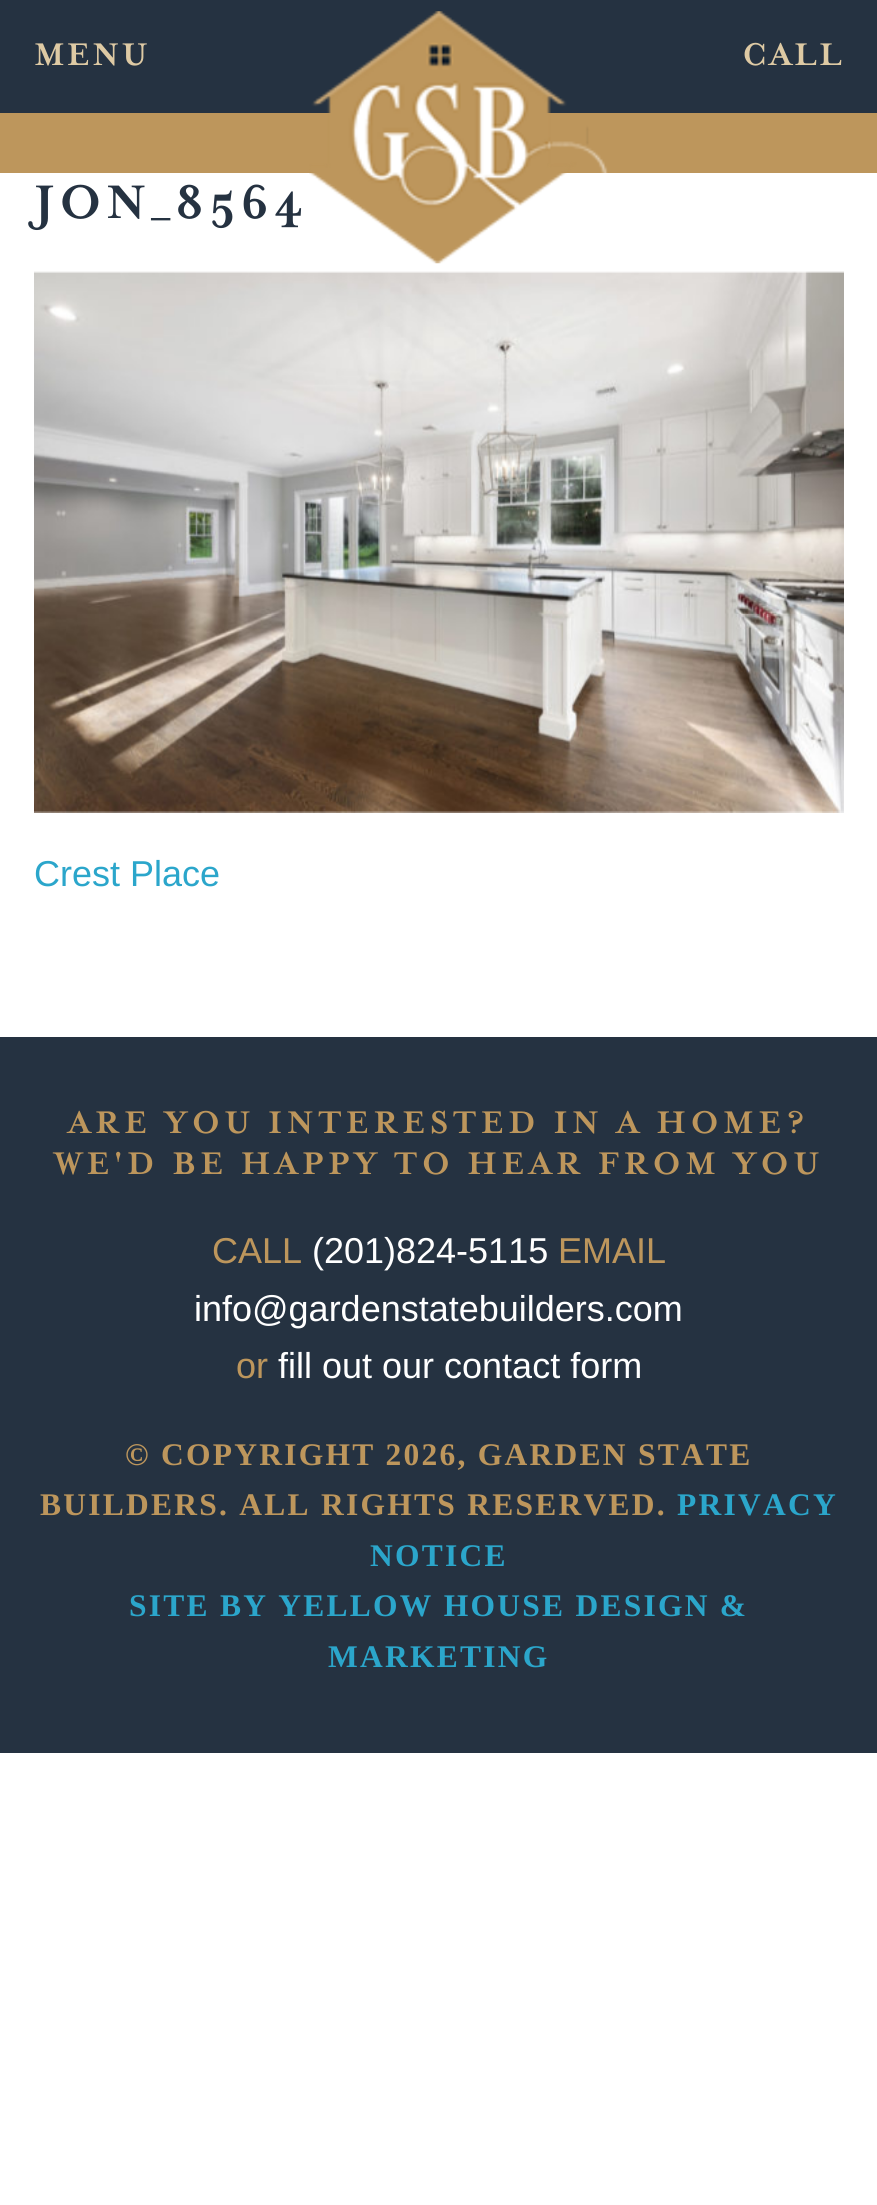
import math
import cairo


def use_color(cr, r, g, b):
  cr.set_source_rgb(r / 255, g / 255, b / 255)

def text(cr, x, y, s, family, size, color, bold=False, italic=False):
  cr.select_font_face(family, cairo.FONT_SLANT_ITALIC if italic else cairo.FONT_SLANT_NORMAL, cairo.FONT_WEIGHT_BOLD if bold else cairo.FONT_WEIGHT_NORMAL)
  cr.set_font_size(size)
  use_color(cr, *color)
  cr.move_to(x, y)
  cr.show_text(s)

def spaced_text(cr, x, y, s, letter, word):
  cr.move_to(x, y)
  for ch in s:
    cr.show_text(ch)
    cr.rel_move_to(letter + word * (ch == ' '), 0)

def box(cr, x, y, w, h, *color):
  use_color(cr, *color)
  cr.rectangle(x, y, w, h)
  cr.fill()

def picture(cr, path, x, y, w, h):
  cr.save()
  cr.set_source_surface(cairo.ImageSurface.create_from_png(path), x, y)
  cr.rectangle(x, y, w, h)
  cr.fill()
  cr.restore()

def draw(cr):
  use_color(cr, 255, 255, 255)
  cr.paint()
  box(cr, 0, 0, 877, 113, 37, 50, 65)
  box(cr, 0, 113, 877, 60, 189, 150, 92)
  picture(cr, "img_01.png", 309, 11, 299, 253)
  picture(cr, "img_02.png", 34, 271, 810, 542)
  box(cr, 0, 1037, 877, 716, 37, 50, 65)
  cr.select_font_face("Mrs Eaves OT", cairo.FONT_SLANT_NORMAL, cairo.FONT_WEIGHT_BOLD)
  cr.set_font_size(36)
  use_color(cr, 222, 202, 164)
  spaced_text(cr, 34, 65, "MENU", 2.25, 0)
  spaced_text(cr, 742, 65, "CALL", 2.25, 0)
  cr.set_font_size(54)
  use_color(cr, 37, 50, 65)
  spaced_text(cr, 34, 218, "JON_8564", 4.5, 0)
  text(cr, 34, 886, "Crest Place", "Liberation Sans", 36, (43, 166, 203))
  cr.select_font_face("Mrs Eaves OT", cairo.FONT_SLANT_NORMAL, cairo.FONT_WEIGHT_BOLD)
  use_color(cr, 189, 150, 92)
  spaced_text(cr, 68, 1133, "ARE YOU INTERESTED IN A HOME?", 4.5, 0)
  spaced_text(cr, 54, 1174, "WE'D BE HAPPY TO HEAR FROM YOU", 4.5, 0)
  text(cr, 212, 1263, "CALL", "Liberation Sans", 36, (189, 150, 92))
  text(cr, 312, 1263, "(201)824-5115", "Liberation Sans", 36, (255, 255, 255))
  text(cr, 558, 1263, "EMAIL", "Liberation Sans", 36, (189, 150, 92))
  text(cr, 194, 1321, "info@gardenstatebuilders.com", "Liberation Sans", 36, (255, 255, 255))
  text(cr, 236, 1378, "or", "Liberation Sans", 36, (189, 150, 92))
  text(cr, 278, 1378, "fill out our contact form", "Liberation Sans", 36, (255, 255, 255))
  cr.select_font_face("Liberation Serif", cairo.FONT_SLANT_NORMAL, cairo.FONT_WEIGHT_BOLD)
  cr.set_font_size(31.5)
  use_color(cr, 189, 150, 92)
  spaced_text(cr, 125, 1465, "© COPYRIGHT 2026, GARDEN STATE", 2.25, 0)
  spaced_text(cr, 40, 1515, "BUILDERS. ALL RIGHTS RESERVED.", 2.25, 0)
  use_color(cr, 43, 166, 203)
  spaced_text(cr, 677, 1515, "PRIVACY", 2.25, 0)
  spaced_text(cr, 370, 1566, "NOTICE", 2.25, 0)
  spaced_text(cr, 129, 1616, "SITE BY YELLOW HOUSE DESIGN &", 2.25, 0)
  spaced_text(cr, 328, 1667, "MARKETING", 2.25, 0)


surface = cairo.ImageSurface(cairo.FORMAT_RGB24, 877, 2205)
cr = cairo.Context(surface)
options = cairo.FontOptions()
options.set_hint_metrics(cairo.HINT_METRICS_OFF)
options.set_hint_style(cairo.HINT_STYLE_NONE)
cr.set_font_options(options)
cr.set_miter_limit(4)
draw(cr)
surface.write_to_png("out.png")
